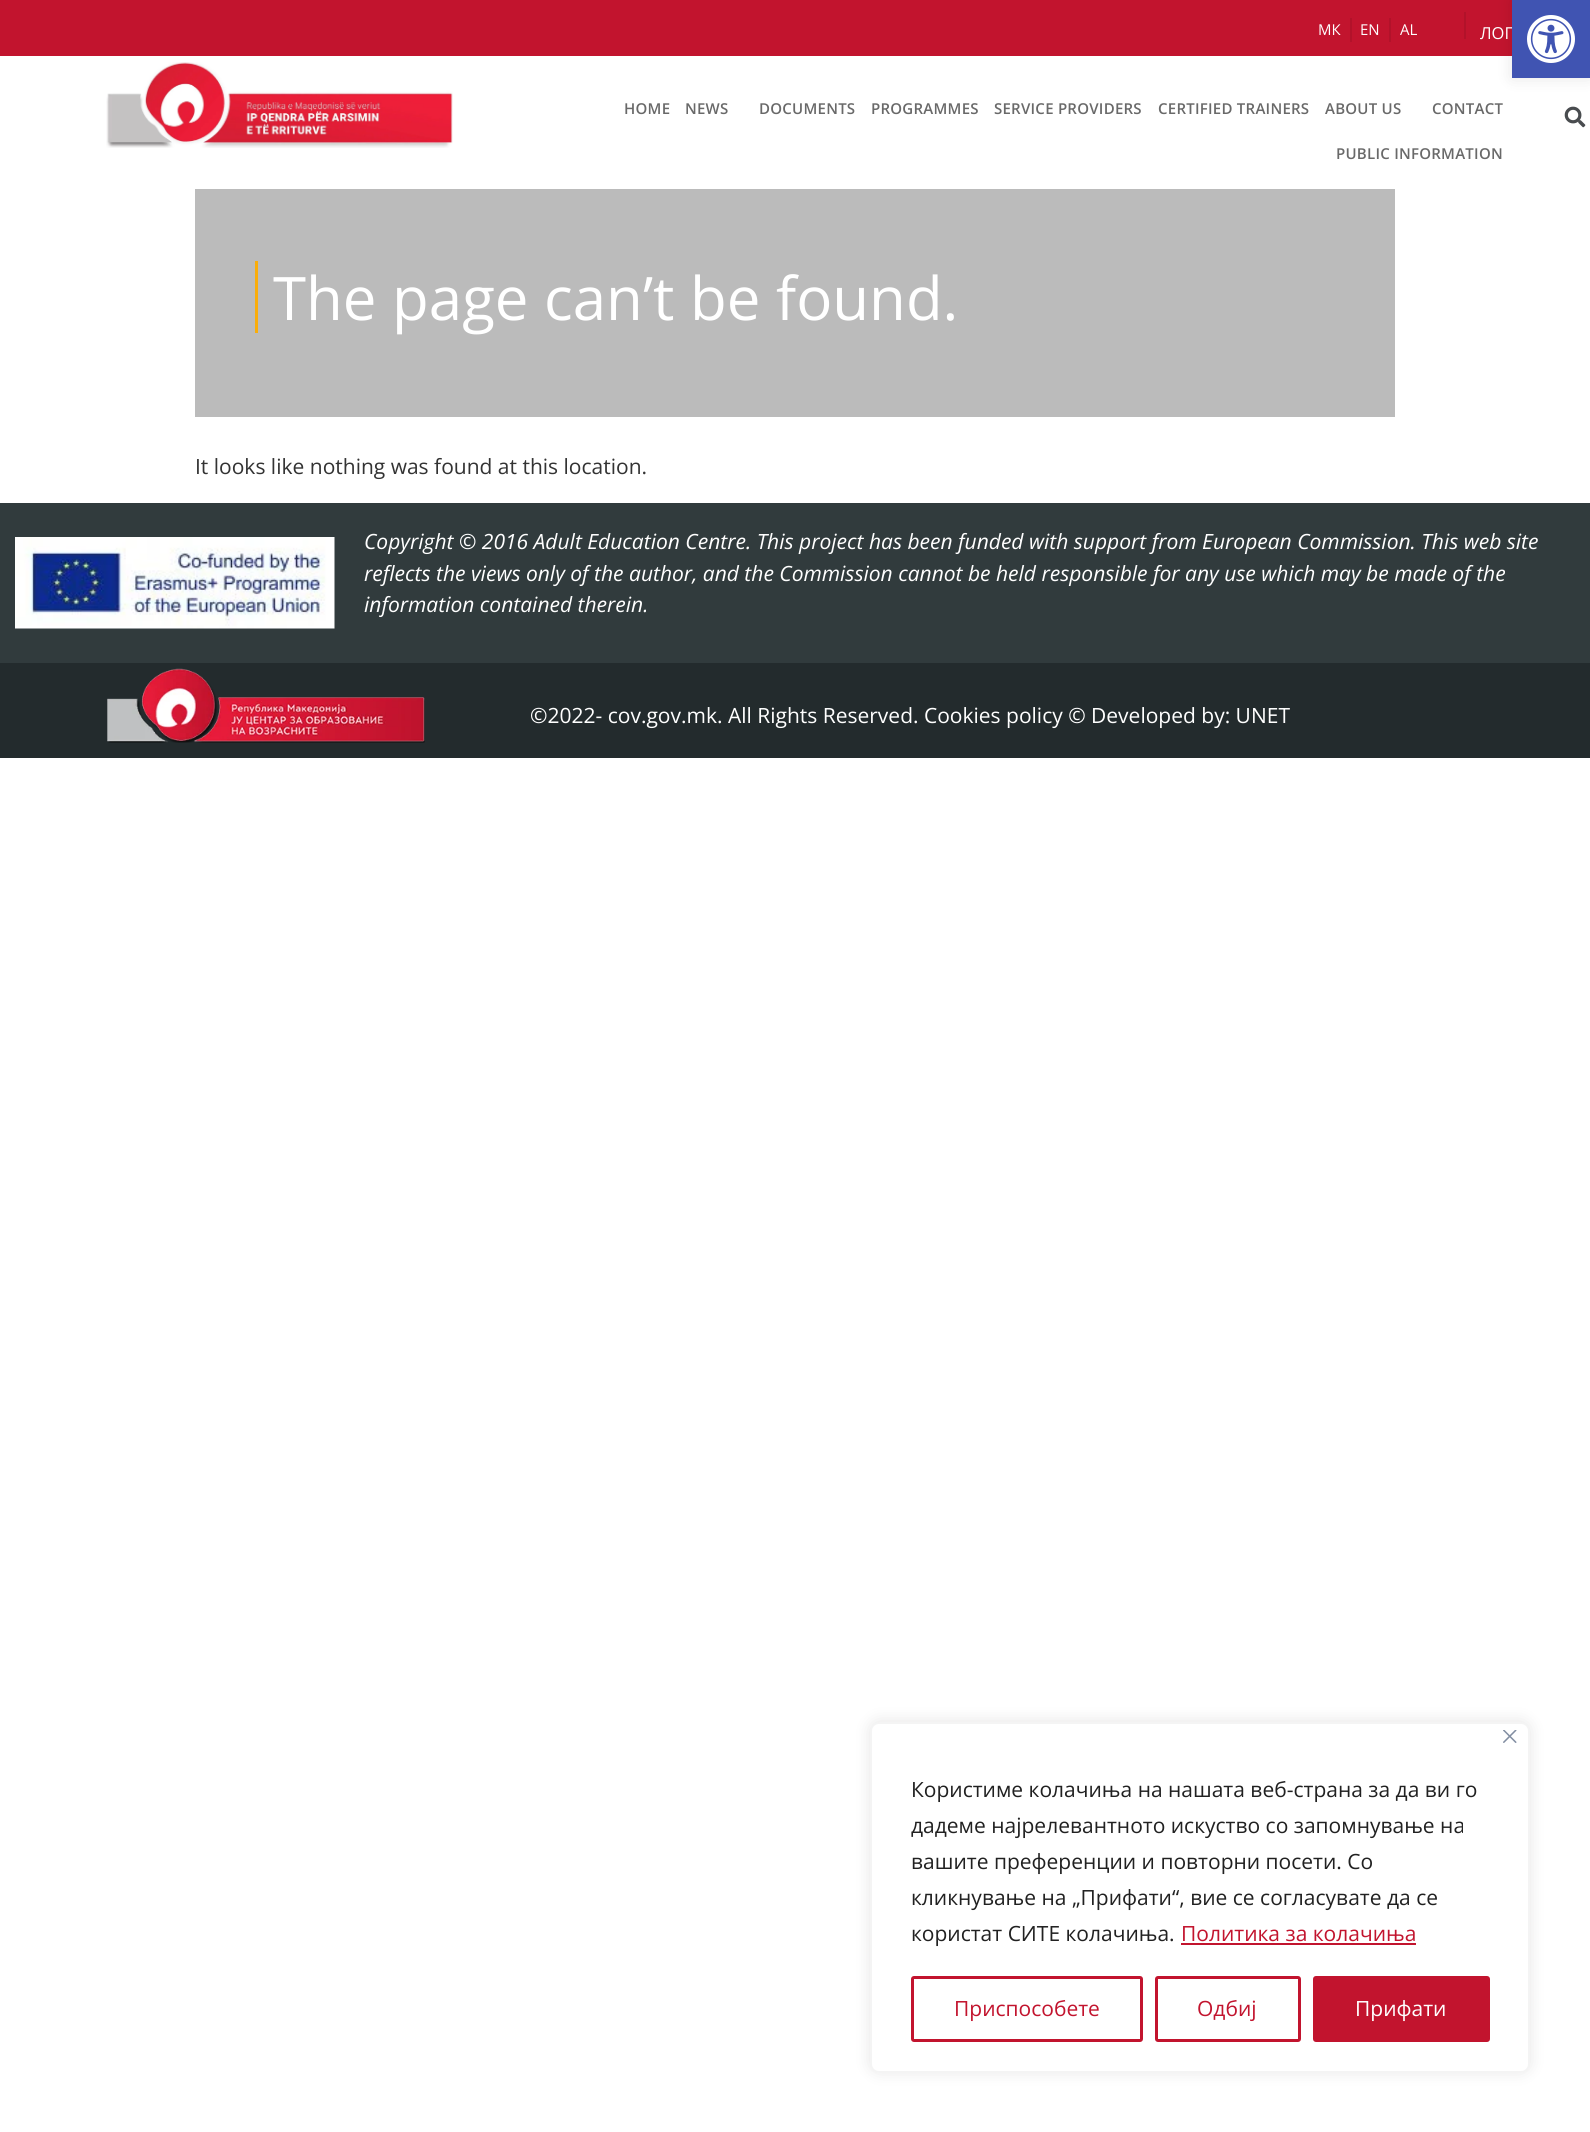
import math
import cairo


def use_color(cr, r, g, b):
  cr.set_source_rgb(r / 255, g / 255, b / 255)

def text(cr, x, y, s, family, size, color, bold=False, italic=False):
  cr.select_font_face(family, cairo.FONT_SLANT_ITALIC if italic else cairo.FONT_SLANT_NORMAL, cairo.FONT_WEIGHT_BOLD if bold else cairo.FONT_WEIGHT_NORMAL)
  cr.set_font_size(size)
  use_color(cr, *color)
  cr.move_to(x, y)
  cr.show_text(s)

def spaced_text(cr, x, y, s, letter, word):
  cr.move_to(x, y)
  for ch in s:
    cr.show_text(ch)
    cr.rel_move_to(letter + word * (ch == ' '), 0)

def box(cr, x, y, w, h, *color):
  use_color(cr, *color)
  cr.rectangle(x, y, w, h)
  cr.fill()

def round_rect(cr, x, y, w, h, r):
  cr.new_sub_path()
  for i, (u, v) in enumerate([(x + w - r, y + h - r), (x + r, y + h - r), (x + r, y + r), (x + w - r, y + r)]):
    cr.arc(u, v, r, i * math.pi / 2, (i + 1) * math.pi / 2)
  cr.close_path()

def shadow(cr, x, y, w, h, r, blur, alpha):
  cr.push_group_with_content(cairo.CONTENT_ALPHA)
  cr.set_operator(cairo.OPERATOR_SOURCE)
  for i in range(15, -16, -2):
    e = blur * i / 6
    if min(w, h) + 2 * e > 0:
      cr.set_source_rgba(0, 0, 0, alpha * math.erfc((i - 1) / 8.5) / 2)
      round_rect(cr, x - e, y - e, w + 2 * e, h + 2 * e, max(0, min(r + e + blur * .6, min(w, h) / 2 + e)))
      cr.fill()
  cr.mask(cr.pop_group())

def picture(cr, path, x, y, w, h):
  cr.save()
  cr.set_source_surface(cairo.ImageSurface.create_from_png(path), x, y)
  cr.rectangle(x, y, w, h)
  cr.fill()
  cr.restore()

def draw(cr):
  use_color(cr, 255, 255, 255)
  cr.paint()
  box(cr, 0, 0, 1512, 56, 194, 20, 46)
  box(cr, 1350, 18, 2, 24, 178, 18, 42)
  box(cr, 1389, 18, 2, 24, 178, 18, 42)
  box(cr, 1464, 12, 2, 27, 178, 18, 42)
  picture(cr, "img_01.png", 106, 62, 347, 86)
  picture(cr, "img_02.png", 1564, 106, 22, 22)
  use_color(cr, 0, 0, 0)
  shadow(cr, 1512, 0, 78, 78, 0, 7.5, 0.1)
  box(cr, 195, 189, 1200, 228, 187, 187, 187)
  box(cr, 255, 261, 3, 72, 249, 173, 10)
  box(cr, 0, 503, 1590, 160, 49, 59, 61)
  picture(cr, "img_04.png", 15, 537, 320, 92)
  box(cr, 0, 663, 1590, 95, 35, 43, 45)
  picture(cr, "img_05.png", 107, 668, 318, 75)
  use_color(cr, 172, 171, 171)
  shadow(cr, 870, 1721, 660, 351, 9, 7.5, 0.3)
  use_color(cr, 255, 255, 255)
  round_rect(cr, 871, 1723, 658, 349, 8)
  cr.fill_preserve()
  use_color(cr, 244, 244, 244)
  cr.stroke()
  picture(cr, "img_06.png", 1503, 1730, 14, 13)
  box(cr, 1181, 1943, 235, 2, 194, 20, 46)
  round_rect(cr, 912.5, 1977.5, 229, 63, 1.5)
  cr.set_line_width(3)
  cr.stroke()
  round_rect(cr, 1156.5, 1977.5, 143, 63, 1.5)
  cr.stroke()
  round_rect(cr, 1314.5, 1977.5, 174, 63, 1.5)
  cr.fill_preserve()
  cr.stroke()
  text(cr, 1318, 35, "МК", "Open Sans", 15, (255, 255, 255))
  text(cr, 1360, 35, "EN", "Open Sans", 15, (255, 255, 255))
  text(cr, 1400, 35, "AL", "Open Sans", 15, (255, 255, 255))
  text(cr, 1480, 39, "ЛОГ", "Open Sans", 16.5, (255, 255, 255))
  cr.select_font_face("Open Sans SemiBold")
  cr.set_font_size(15)
  use_color(cr, 105, 105, 105)
  spaced_text(cr, 624, 114, "HOME", 0.25, 0)
  spaced_text(cr, 685, 114, "NEWS", 0.25, 0)
  spaced_text(cr, 759, 114, "DOCUMENTS", 0.25, 0)
  spaced_text(cr, 871, 114, "PROGRAMMES", 0.25, 0)
  spaced_text(cr, 994, 114, "SERVICE PROVIDERS", 0.25, 0)
  spaced_text(cr, 1158, 114, "CERTIFIED TRAINERS", 0.25, 0)
  spaced_text(cr, 1325, 114, "ABOUT US", 0.25, 0)
  spaced_text(cr, 1432, 114, "CONTACT", 0.25, 0)
  spaced_text(cr, 1336, 159, "PUBLIC INFORMATION", 0.25, 0)
  box(cr, 1512, 0, 78, 78, 64, 84, 178)
  picture(cr, "img_03.png", 1527, 15, 48, 48)
  text(cr, 273, 320, "The page can’t be found.", "Open Sans", 60, (255, 255, 255))
  text(cr, 195, 474, "It looks like nothing was found at this location.", "Open Sans", 21, (51, 51, 51))
  text(cr, 364, 549, "Copyright © 2016 Adult Education Centre. This project has been funded with support from European Commission. This web site", "Open Sans", 21, (255, 255, 255), italic=True)
  text(cr, 364, 581, "reflects the views only of the author, and the Commission cannot be held responsible for any use which may be made of the", "Open Sans", 21, (255, 255, 255), italic=True)
  text(cr, 364, 612, "information contained therein.", "Open Sans", 21, (255, 255, 255), italic=True)
  text(cr, 530, 723, "©2022- cov.gov.mk. All Rights Reserved. Cookies policy © Developed by: UNET", "Open Sans", 21, (255, 255, 255))
  text(cr, 911, 1797, "Користиме колачиња на нашата веб-страна за да ви го", "Open Sans", 21, (33, 33, 33))
  text(cr, 911, 1833, "дадеме најрелевантното искуство со запомнување на", "Open Sans", 21, (33, 33, 33))
  text(cr, 911, 1869, "вашите преференции и повторни посети. Со", "Open Sans", 21, (33, 33, 33))
  text(cr, 911, 1905, "кликнување на „Прифати“, вие се согласувате да се", "Open Sans", 21, (33, 33, 33))
  text(cr, 911, 1941, "користат СИТЕ колачиња.", "Open Sans", 21, (33, 33, 33))
  text(cr, 1181, 1941, "Политика за колачиња", "Open Sans", 21, (194, 20, 46))
  text(cr, 954, 2016, "Приспособете", "Open Sans", 21, (194, 20, 46))
  text(cr, 1197, 2016, "Одбиј", "Open Sans", 21, (194, 20, 46))
  text(cr, 1355, 2016, "Прифати", "Open Sans", 21, (255, 255, 255))


surface = cairo.ImageSurface(cairo.FORMAT_RGB24, 1590, 2132)
cr = cairo.Context(surface)
options = cairo.FontOptions()
options.set_hint_metrics(cairo.HINT_METRICS_OFF)
options.set_hint_style(cairo.HINT_STYLE_NONE)
cr.set_font_options(options)
cr.set_miter_limit(4)
draw(cr)
surface.write_to_png("out.png")
